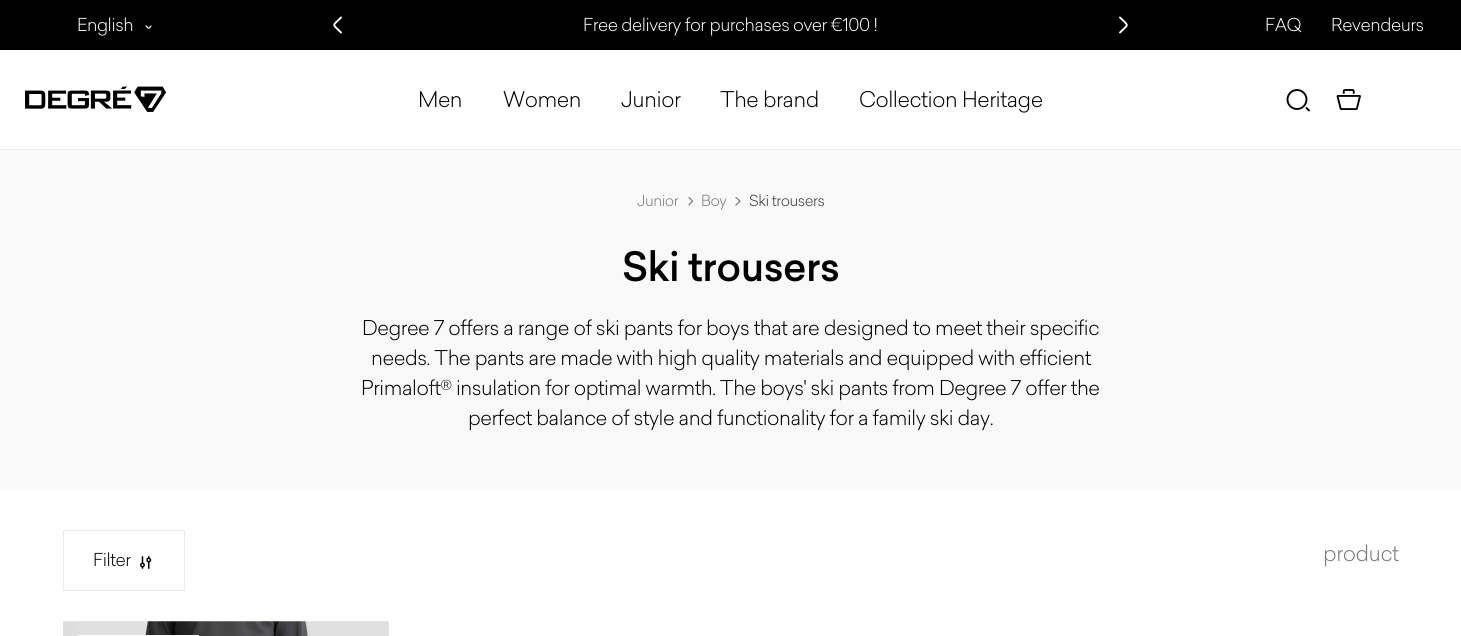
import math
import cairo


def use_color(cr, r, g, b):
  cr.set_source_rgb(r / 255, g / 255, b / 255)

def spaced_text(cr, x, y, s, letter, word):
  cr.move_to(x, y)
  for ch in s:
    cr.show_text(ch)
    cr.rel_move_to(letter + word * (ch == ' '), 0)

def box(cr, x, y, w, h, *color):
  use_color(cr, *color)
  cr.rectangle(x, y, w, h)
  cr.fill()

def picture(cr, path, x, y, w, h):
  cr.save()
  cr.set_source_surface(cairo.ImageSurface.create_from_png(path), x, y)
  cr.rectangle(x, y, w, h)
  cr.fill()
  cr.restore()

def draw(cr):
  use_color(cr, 255, 255, 255)
  cr.paint()
  box(cr, 0, 0, 1461, 50, 0, 0, 0)
  cr.new_path()
  cr.move_to(151, 26)
  cr.curve_to(148.5, 29, 149, 29, 146, 26)
  use_color(cr, 255, 255, 255)
  cr.set_line_width(1.2)
  cr.set_line_cap(cairo.LINE_CAP_ROUND)
  cr.stroke()
  cr.new_path()
  cr.move_to(341, 17.5)
  cr.curve_to(332, 26.5, 332, 23.5, 341, 32.5)
  cr.set_line_width(1.9)
  cr.set_line_join(cairo.LINE_JOIN_ROUND)
  cr.stroke()
  cr.new_path()
  cr.move_to(1120, 17.5)
  cr.curve_to(1129, 26.5, 1129, 23.5, 1120, 32.5)
  cr.stroke()
  box(cr, 0, 149, 1461, 1, 235, 235, 235)
  picture(cr, "img_01.png", 25, 86, 141, 26)
  cr.arc(1297, 99.5, 9.5, 0, 2 * math.pi)
  use_color(cr, 0, 0, 0)
  cr.set_line_cap(cairo.LINE_CAP_BUTT)
  cr.set_line_join(cairo.LINE_JOIN_MITER)
  cr.stroke()
  cr.new_path()
  cr.move_to(1306, 107.5)
  cr.line_to(1309.5, 111)
  cr.stroke()
  picture(cr, "img_02.png", 1336, 89, 26, 21)
  box(cr, 0, 150, 1461, 340, 249, 249, 249)
  cr.new_path()
  cr.move_to(689, 197.5)
  cr.line_to(692.5, 201)
  cr.line_to(689, 205)
  cr.move_to(736, 197.5)
  cr.line_to(740, 201)
  cr.line_to(736, 205)
  use_color(cr, 122, 122, 122)
  cr.set_line_width(1.2)
  cr.set_line_cap(cairo.LINE_CAP_ROUND)
  cr.set_line_join(cairo.LINE_JOIN_ROUND)
  cr.stroke()
  cr.rectangle(63.5, 530.5, 121, 60)
  use_color(cr, 235, 235, 235)
  cr.set_line_width(1)
  cr.set_line_cap(cairo.LINE_CAP_BUTT)
  cr.set_line_join(cairo.LINE_JOIN_MITER)
  cr.stroke()
  picture(cr, "img_03.png", 140, 556, 12, 13)
  box(cr, 63, 621, 326, 15, 249, 249, 249)
  picture(cr, "img_04.png", 63, 621, 326, 15)
  box(cr, 78, 635, 121, 1, 255, 255, 255)
  cr.select_font_face("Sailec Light")
  cr.set_font_size(17.5)
  spaced_text(cr, 77, 31, "English", -0.43, 0)
  spaced_text(cr, 583, 31, "Free delivery for purchases over €100 !", -0.43, 0)
  spaced_text(cr, 1265, 31, "FAQ", -0.43, 0)
  spaced_text(cr, 1331, 31, "Revendeurs", -0.43, 0)
  cr.set_font_size(21.25)
  use_color(cr, 0, 0, 0)
  spaced_text(cr, 418, 107, "Men", -0.43, 0)
  spaced_text(cr, 503, 107, "Women", -0.43, 0)
  spaced_text(cr, 621, 107, "Junior", -0.43, 0)
  spaced_text(cr, 720, 107, "The brand", -0.43, 0)
  spaced_text(cr, 859, 107, "Collection Heritage", -0.43, 0)
  cr.set_font_size(15)
  use_color(cr, 122, 122, 122)
  spaced_text(cr, 637, 206, "Junior", -0.43, 0)
  spaced_text(cr, 701, 206, "Boy", -0.43, 0)
  use_color(cr, 55, 53, 49)
  spaced_text(cr, 749, 206, "Ski trousers", -0.43, 0)
  cr.select_font_face("Sailec Medium")
  cr.set_font_size(39.75)
  use_color(cr, 0, 0, 0)
  spaced_text(cr, 622, 281, "Ski trousers", -0.43, 0)
  cr.select_font_face("Sailec Light")
  cr.set_font_size(20)
  spaced_text(cr, 362, 335, "Degree 7 offers a range of ski pants for boys that are designed to meet their specific", -0.43, 0)
  spaced_text(cr, 371, 365, "needs. The pants are made with high quality materials and equipped with efficient", -0.43, 0)
  spaced_text(cr, 361, 395, "Primaloft® insulation for optimal warmth. The boys' ski pants from Degree 7 offer the", -0.43, 0)
  spaced_text(cr, 468, 425, "perfect balance of style and functionality for a family ski day.", -0.43, 0)
  cr.set_font_size(17.5)
  spaced_text(cr, 93, 566, "Filter", -0.43, 0)
  cr.set_font_size(21.25)
  use_color(cr, 122, 122, 122)
  spaced_text(cr, 1323, 561, "product", -0.43, 0)


surface = cairo.ImageSurface(cairo.FORMAT_RGB24, 1461, 636)
cr = cairo.Context(surface)
options = cairo.FontOptions()
options.set_hint_metrics(cairo.HINT_METRICS_OFF)
options.set_hint_style(cairo.HINT_STYLE_NONE)
cr.set_font_options(options)
cr.set_miter_limit(4)
draw(cr)
surface.write_to_png("out.png")
